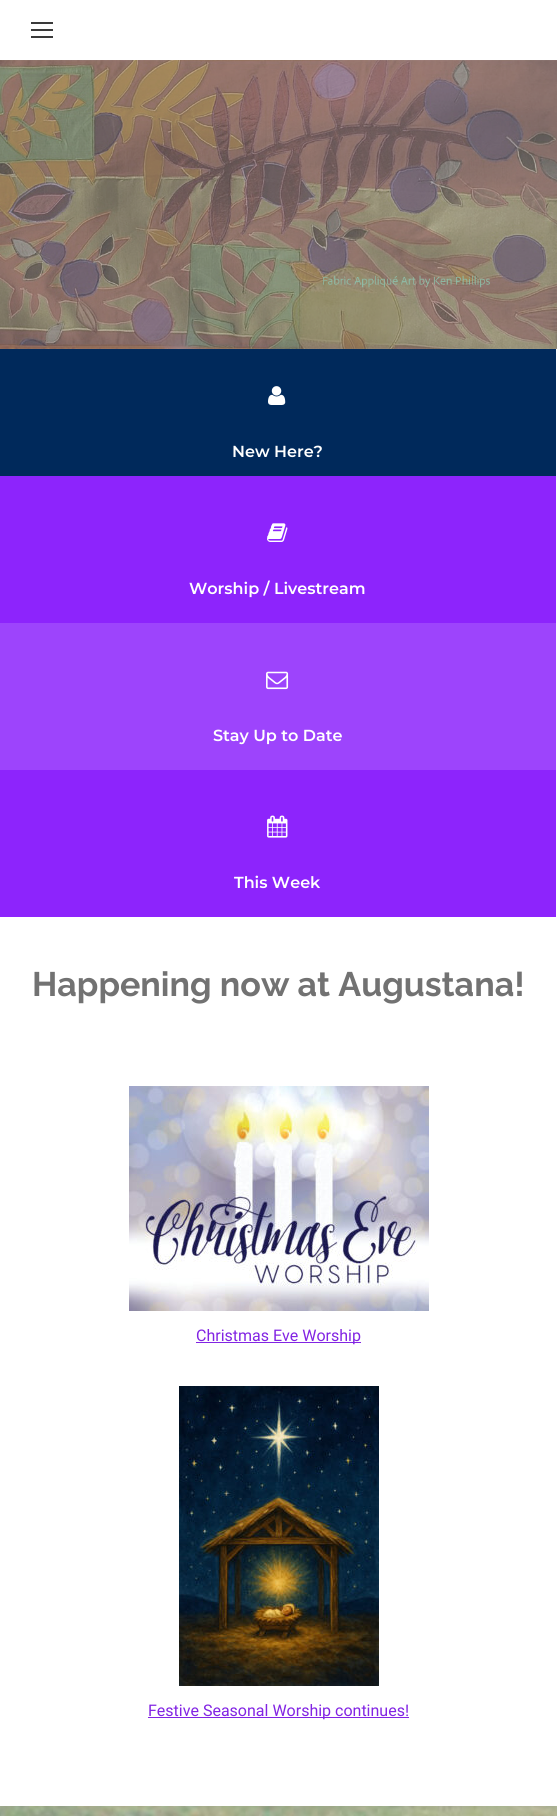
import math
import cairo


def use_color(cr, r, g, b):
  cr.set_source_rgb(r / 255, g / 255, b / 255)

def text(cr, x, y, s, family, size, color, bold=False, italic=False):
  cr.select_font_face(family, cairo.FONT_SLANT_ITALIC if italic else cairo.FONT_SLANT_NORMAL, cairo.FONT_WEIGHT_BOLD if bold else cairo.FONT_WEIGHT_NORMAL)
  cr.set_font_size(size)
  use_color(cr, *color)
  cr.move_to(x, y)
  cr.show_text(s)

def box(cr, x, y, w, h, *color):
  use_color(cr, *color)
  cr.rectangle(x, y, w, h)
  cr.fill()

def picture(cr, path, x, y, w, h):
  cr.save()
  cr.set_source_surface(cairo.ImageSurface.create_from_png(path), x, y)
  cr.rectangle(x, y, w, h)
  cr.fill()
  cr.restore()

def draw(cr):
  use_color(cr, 255, 255, 255)
  cr.paint()
  box(cr, 31, 22, 22, 2, 58, 58, 58)
  box(cr, 31, 29, 22, 2, 58, 58, 58)
  box(cr, 31, 36, 22, 2, 58, 58, 58)
  box(cr, 0, 60, 557, 289, 233, 233, 233)
  picture(cr, "img_01.png", 0, 60, 557, 289)
  box(cr, 0, 349, 556, 127, 0, 41, 91)
  picture(cr, "img_02.png", 268, 386, 18, 19)
  box(cr, 0, 476, 556, 147, 141, 36, 252)
  picture(cr, "img_03.png", 267, 523, 21, 19)
  box(cr, 0, 623, 556, 147, 157, 68, 252)
  picture(cr, "img_04.png", 266, 671, 23, 19)
  box(cr, 0, 770, 556, 147, 141, 36, 252)
  picture(cr, "img_05.png", 267, 815, 21, 23)
  picture(cr, "img_06.png", 129, 1086, 300, 225)
  box(cr, 196, 1342, 165, 1, 130, 36, 227)
  picture(cr, "img_07.png", 179, 1386, 200, 300)
  box(cr, 148, 1717, 261, 1, 130, 36, 227)
  picture(cr, "img_08.png", 0, 1806, 557, 10)
  text(cr, 232, 457, "New Here?", "Montserrat SemiBold", 16, (255, 255, 255))
  text(cr, 189, 594, "Worship / Livestream", "Montserrat SemiBold", 16, (255, 255, 255))
  text(cr, 213, 741, "Stay Up to Date", "Montserrat SemiBold", 16, (255, 255, 255))
  text(cr, 234, 888, "This Week", "Montserrat SemiBold", 16, (255, 255, 255))
  text(cr, 32, 996, "Happening now at Augustana!", "Raleway", 34, (114, 114, 114), bold=True)
  text(cr, 196, 1341, "Christmas Eve Worship", "Roboto", 16, (130, 36, 227))
  text(cr, 148, 1716, "Festive Seasonal Worship continues!", "Roboto", 16, (130, 36, 227))


surface = cairo.ImageSurface(cairo.FORMAT_RGB24, 557, 1816)
cr = cairo.Context(surface)
options = cairo.FontOptions()
options.set_hint_metrics(cairo.HINT_METRICS_OFF)
options.set_hint_style(cairo.HINT_STYLE_NONE)
cr.set_font_options(options)
cr.set_miter_limit(4)
draw(cr)
surface.write_to_png("out.png")
